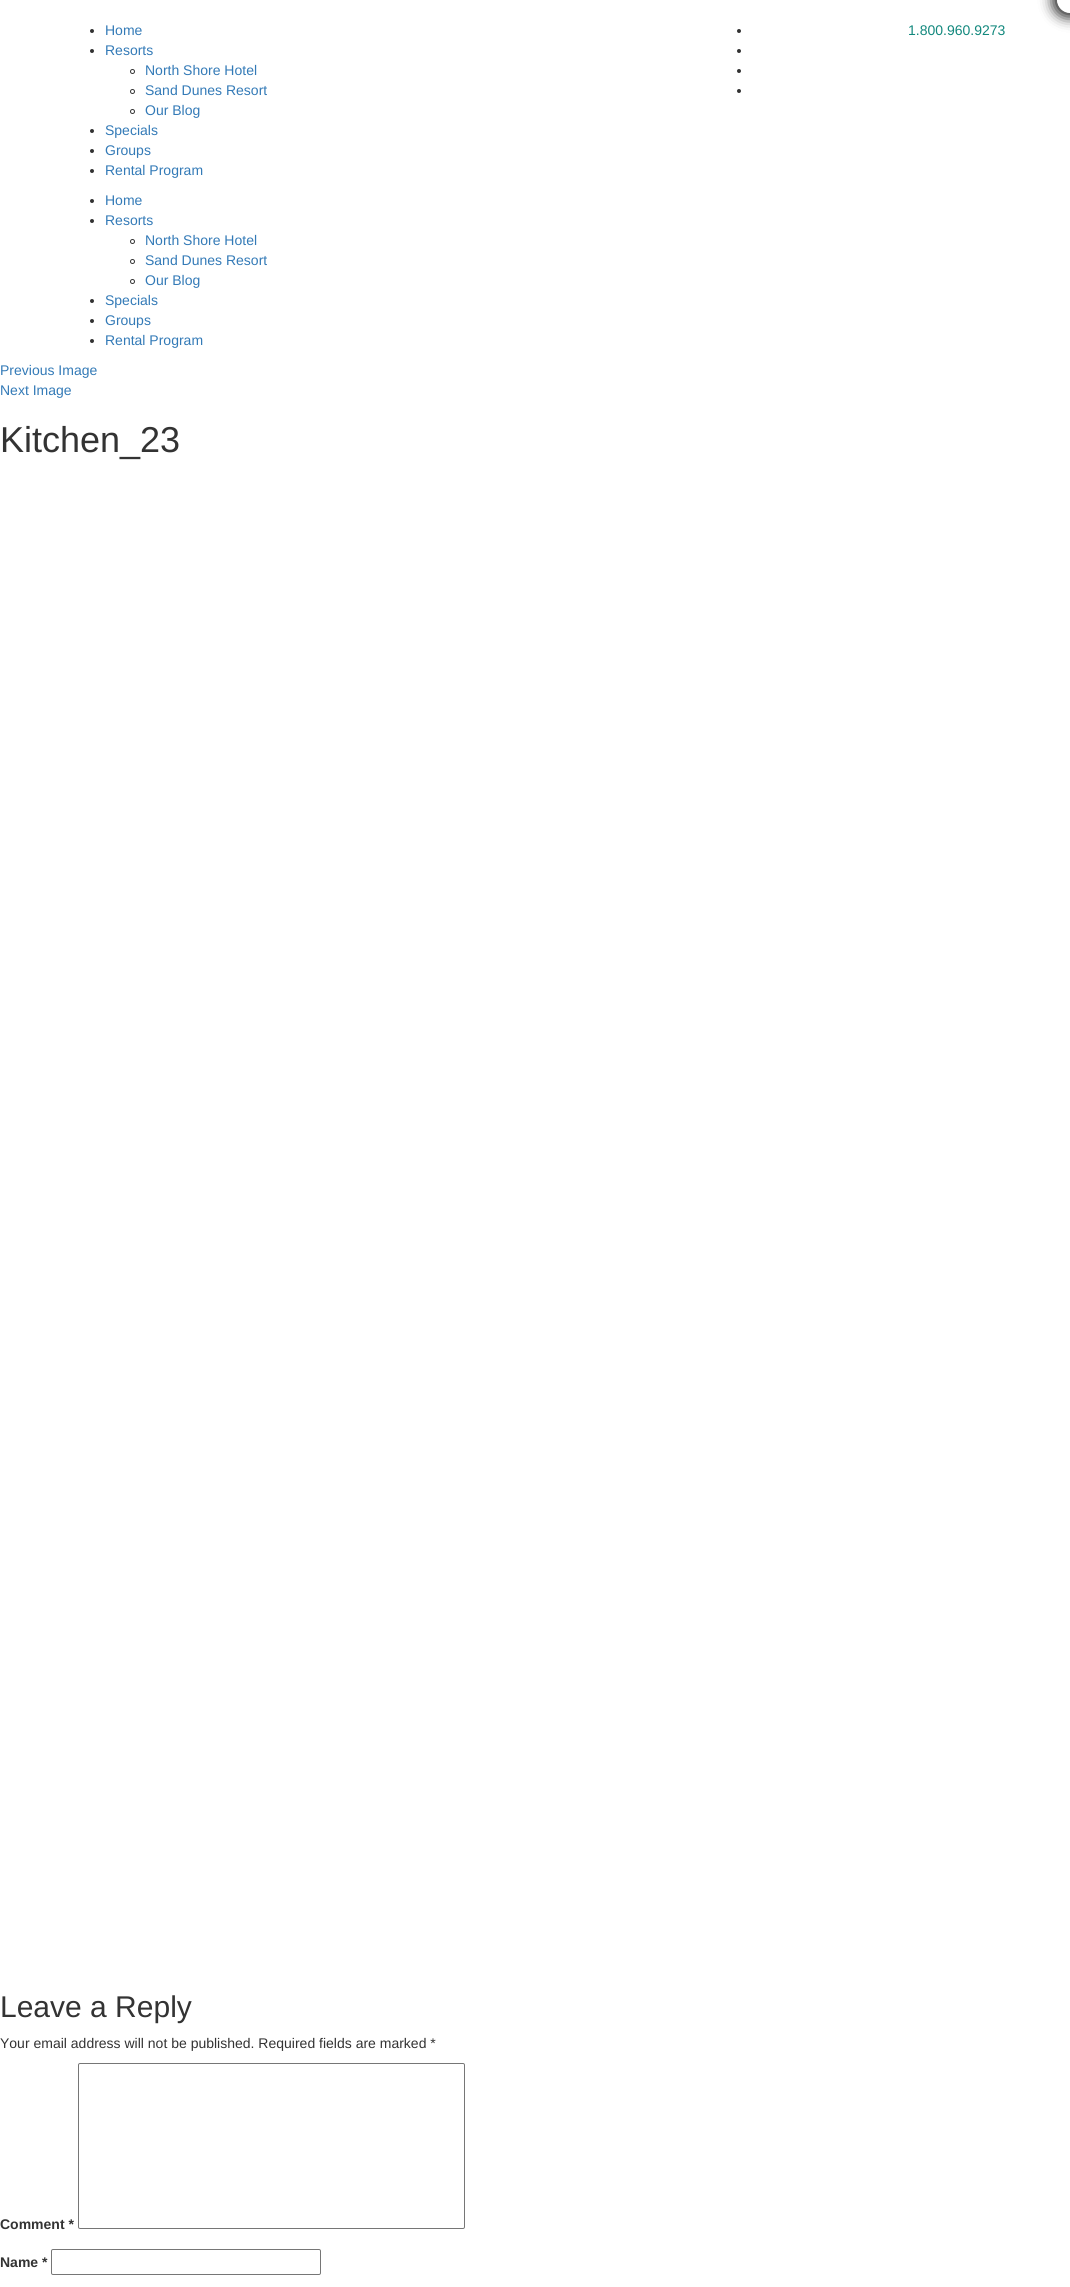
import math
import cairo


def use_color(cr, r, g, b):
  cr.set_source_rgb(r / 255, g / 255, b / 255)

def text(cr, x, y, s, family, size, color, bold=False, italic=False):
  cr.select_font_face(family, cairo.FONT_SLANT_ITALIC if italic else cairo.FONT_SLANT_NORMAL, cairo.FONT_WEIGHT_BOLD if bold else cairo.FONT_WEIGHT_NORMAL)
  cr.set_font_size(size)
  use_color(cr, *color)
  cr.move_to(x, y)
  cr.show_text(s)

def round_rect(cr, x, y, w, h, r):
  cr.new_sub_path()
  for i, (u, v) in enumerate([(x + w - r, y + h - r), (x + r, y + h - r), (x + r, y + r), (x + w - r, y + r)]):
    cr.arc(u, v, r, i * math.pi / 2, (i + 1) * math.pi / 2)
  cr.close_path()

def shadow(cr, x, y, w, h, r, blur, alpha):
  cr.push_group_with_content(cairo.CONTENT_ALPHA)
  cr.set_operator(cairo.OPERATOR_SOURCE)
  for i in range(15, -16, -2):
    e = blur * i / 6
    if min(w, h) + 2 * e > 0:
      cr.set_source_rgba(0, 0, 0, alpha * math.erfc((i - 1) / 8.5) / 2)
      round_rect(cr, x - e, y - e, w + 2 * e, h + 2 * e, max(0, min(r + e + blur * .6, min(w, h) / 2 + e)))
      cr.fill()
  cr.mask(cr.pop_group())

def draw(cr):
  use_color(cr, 255, 255, 255)
  cr.paint()
  cr.save()
  cr.set_fill_rule(cairo.FILL_RULE_EVEN_ODD)
  cr.new_path()
  cr.move_to(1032, 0)
  cr.line_to(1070, 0)
  cr.line_to(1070, 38)
  cr.line_to(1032, 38)
  cr.close_path()
  cr.move_to(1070, -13)
  cr.curve_to(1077, -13, 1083, -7, 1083, 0)
  cr.curve_to(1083, 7, 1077, 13, 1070, 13)
  cr.curve_to(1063, 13, 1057, 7, 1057, 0)
  cr.curve_to(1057, -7, 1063, -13, 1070, -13)
  cr.close_path()
  cr.clip()
  use_color(cr, 2, 2, 2)
  shadow(cr, 1056, -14, 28, 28, 14, 7.5, 0.75)
  shadow(cr, 1056, -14, 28, 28, 14, 7.5, 0.75)
  cr.restore()
  use_color(cr, 51, 51, 51)
  cr.arc(92, 31, 2, 0, 2 * math.pi)
  cr.fill()
  cr.arc(92, 51, 2, 0, 2 * math.pi)
  cr.fill()
  cr.arc(132.5, 71.5, 2, 0, 2 * math.pi)
  cr.set_line_width(1)
  cr.stroke()
  cr.arc(132.5, 91.5, 2, 0, 2 * math.pi)
  cr.stroke()
  cr.arc(132.5, 111.5, 2, 0, 2 * math.pi)
  cr.stroke()
  cr.arc(92, 131, 2, 0, 2 * math.pi)
  cr.fill()
  cr.arc(92, 151, 2, 0, 2 * math.pi)
  cr.fill()
  cr.arc(92, 171, 2, 0, 2 * math.pi)
  cr.fill()
  cr.arc(739, 31, 2, 0, 2 * math.pi)
  cr.fill()
  cr.arc(739, 51, 2, 0, 2 * math.pi)
  cr.fill()
  cr.arc(739, 71, 2, 0, 2 * math.pi)
  cr.fill()
  cr.arc(739, 91, 2, 0, 2 * math.pi)
  cr.fill()
  cr.arc(92, 201, 2, 0, 2 * math.pi)
  cr.fill()
  cr.arc(92, 221, 2, 0, 2 * math.pi)
  cr.fill()
  cr.arc(132.5, 241.5, 2, 0, 2 * math.pi)
  cr.stroke()
  cr.arc(132.5, 261.5, 2, 0, 2 * math.pi)
  cr.stroke()
  cr.arc(132.5, 281.5, 2, 0, 2 * math.pi)
  cr.stroke()
  cr.arc(92, 301, 2, 0, 2 * math.pi)
  cr.fill()
  cr.arc(92, 321, 2, 0, 2 * math.pi)
  cr.fill()
  cr.arc(92, 341, 2, 0, 2 * math.pi)
  cr.fill()
  round_rect(cr, 78.5, 2063.5, 386, 165, 1.5)
  use_color(cr, 118, 118, 118)
  cr.stroke()
  round_rect(cr, 51.5, 2249.5, 269, 25, 1.5)
  cr.stroke()
  text(cr, 105, 35, "Home", "Liberation Sans", 14, (51, 122, 183))
  text(cr, 105, 55, "Resorts", "Liberation Sans", 14, (51, 122, 183))
  text(cr, 145, 75, "North Shore Hotel", "Liberation Sans", 14, (51, 122, 183))
  text(cr, 145, 95, "Sand Dunes Resort", "Liberation Sans", 14, (51, 122, 183))
  text(cr, 145, 115, "Our Blog", "Liberation Sans", 14, (51, 122, 183))
  text(cr, 105, 135, "Specials", "Liberation Sans", 14, (51, 122, 183))
  text(cr, 105, 155, "Groups", "Liberation Sans", 14, (51, 122, 183))
  text(cr, 105, 175, "Rental Program", "Liberation Sans", 14, (51, 122, 183))
  text(cr, 908, 35, "1.800.960.9273", "Liberation Sans", 14, (18, 136, 125))
  text(cr, 105, 205, "Home", "Liberation Sans", 14, (51, 122, 183))
  text(cr, 105, 225, "Resorts", "Liberation Sans", 14, (51, 122, 183))
  text(cr, 145, 245, "North Shore Hotel", "Liberation Sans", 14, (51, 122, 183))
  text(cr, 145, 265, "Sand Dunes Resort", "Liberation Sans", 14, (51, 122, 183))
  text(cr, 145, 285, "Our Blog", "Liberation Sans", 14, (51, 122, 183))
  text(cr, 105, 305, "Specials", "Liberation Sans", 14, (51, 122, 183))
  text(cr, 105, 325, "Groups", "Liberation Sans", 14, (51, 122, 183))
  text(cr, 105, 345, "Rental Program", "Liberation Sans", 14, (51, 122, 183))
  text(cr, 0, 375, "Previous Image", "Liberation Sans", 14, (51, 122, 183))
  text(cr, 0, 395, "Next Image", "Liberation Sans", 14, (51, 122, 183))
  text(cr, 0, 452, "Kitchen_23", "Liberation Sans", 36, (51, 51, 51))
  text(cr, 0, 2017, "Leave a Reply", "Liberation Sans", 30, (51, 51, 51))
  text(cr, 0, 2048, "Your email address will not be published. Required fields are marked *", "Liberation Sans", 14, (51, 51, 51))
  text(cr, 0, 2229, "Comment *", "Liberation Sans", 14, (51, 51, 51), bold=True)
  text(cr, 0, 2267, "Name *", "Liberation Sans", 14, (51, 51, 51), bold=True)


surface = cairo.ImageSurface(cairo.FORMAT_RGB24, 1070, 2287)
cr = cairo.Context(surface)
options = cairo.FontOptions()
options.set_hint_metrics(cairo.HINT_METRICS_OFF)
options.set_hint_style(cairo.HINT_STYLE_NONE)
cr.set_font_options(options)
cr.set_miter_limit(4)
draw(cr)
surface.write_to_png("out.png")
